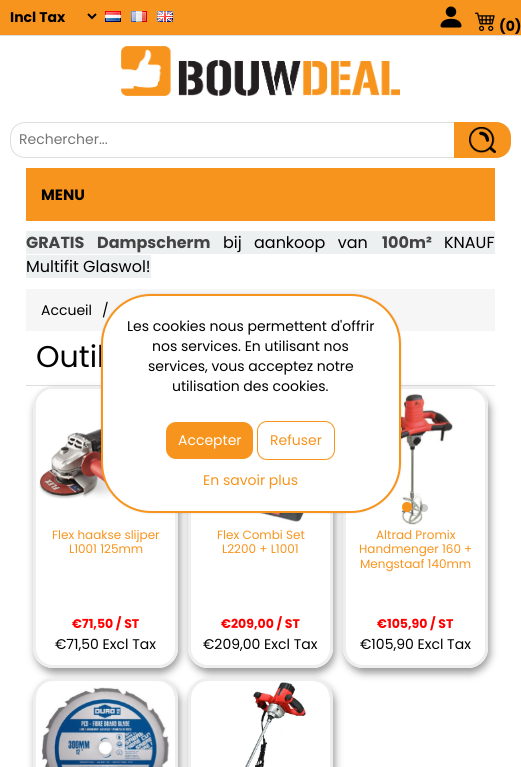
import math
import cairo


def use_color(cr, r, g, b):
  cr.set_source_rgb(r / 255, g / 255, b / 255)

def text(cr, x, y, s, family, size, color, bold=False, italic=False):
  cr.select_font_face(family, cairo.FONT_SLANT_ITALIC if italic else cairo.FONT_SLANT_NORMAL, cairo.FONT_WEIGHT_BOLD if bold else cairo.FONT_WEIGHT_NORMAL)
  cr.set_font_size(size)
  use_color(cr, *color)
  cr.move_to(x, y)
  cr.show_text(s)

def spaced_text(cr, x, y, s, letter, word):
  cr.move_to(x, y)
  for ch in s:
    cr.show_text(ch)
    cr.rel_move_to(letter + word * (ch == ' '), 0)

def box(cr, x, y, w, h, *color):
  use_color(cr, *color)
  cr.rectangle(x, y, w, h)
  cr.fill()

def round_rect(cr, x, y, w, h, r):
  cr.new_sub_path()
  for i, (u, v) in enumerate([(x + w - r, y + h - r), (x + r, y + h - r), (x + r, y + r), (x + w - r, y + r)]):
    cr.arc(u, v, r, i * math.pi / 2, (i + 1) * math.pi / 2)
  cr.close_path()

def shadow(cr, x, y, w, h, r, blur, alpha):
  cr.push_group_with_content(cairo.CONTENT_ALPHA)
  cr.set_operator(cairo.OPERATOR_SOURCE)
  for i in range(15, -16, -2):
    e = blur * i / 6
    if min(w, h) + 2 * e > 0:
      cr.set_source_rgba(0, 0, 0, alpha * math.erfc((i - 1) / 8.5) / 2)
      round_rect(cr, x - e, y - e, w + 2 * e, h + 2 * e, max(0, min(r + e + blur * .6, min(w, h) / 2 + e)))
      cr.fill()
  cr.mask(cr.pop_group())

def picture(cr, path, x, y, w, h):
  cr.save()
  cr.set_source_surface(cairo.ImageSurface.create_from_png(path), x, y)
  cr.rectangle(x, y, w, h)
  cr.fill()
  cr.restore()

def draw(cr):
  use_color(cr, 255, 255, 255)
  cr.paint()
  box(cr, 0, 0, 521, 35, 247, 148, 29)
  box(cr, 0, 35, 521, 1, 221, 221, 221)
  cr.new_path()
  cr.move_to(88, 14)
  cr.line_to(92, 18)
  cr.line_to(96, 14)
  use_color(cr, 0, 0, 0)
  cr.stroke()
  picture(cr, "img_01.png", 105, 11, 16, 11)
  picture(cr, "img_02.png", 131, 11, 16, 11)
  picture(cr, "img_03.png", 157, 11, 16, 11)
  picture(cr, "img_04.png", 440, 6, 22, 22)
  picture(cr, "img_05.png", 475, 12, 20, 19)
  picture(cr, "img_06.png", 121, 46, 279, 50)
  cr.new_path()
  cr.move_to(25, 122.5)
  cr.line_to(454.5, 122.5)
  cr.line_to(454.5, 157.5)
  cr.line_to(25, 157.5)
  cr.curve_to(17, 157.5, 10.5, 151, 10.5, 143)
  cr.line_to(10.5, 137)
  cr.curve_to(10.5, 129, 17, 122.5, 25, 122.5)
  cr.close_path()
  use_color(cr, 221, 221, 221)
  cr.set_line_width(1)
  cr.stroke()
  use_color(cr, 247, 148, 29)
  cr.new_path()
  cr.move_to(454, 122)
  cr.line_to(496, 122)
  cr.curve_to(504.5, 122, 511, 128.5, 511, 137)
  cr.line_to(511, 143)
  cr.curve_to(511, 151.5, 504.5, 158, 496, 158)
  cr.line_to(454, 158)
  cr.close_path()
  cr.fill()
  picture(cr, "img_07.png", 469, 127, 27, 26)
  box(cr, 26, 168, 469, 53, 247, 148, 29)
  box(cr, 26, 231, 469, 23, 236, 240, 241)
  box(cr, 26, 255, 125, 23, 236, 240, 241)
  box(cr, 26, 289, 469, 42, 246, 246, 246)
  box(cr, 26, 385, 469, 1, 221, 221, 221)
  cr.save()
  cr.set_fill_rule(cairo.FILL_RULE_EVEN_ODD)
  cr.new_path()
  cr.move_to(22, 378)
  cr.line_to(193, 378)
  cr.line_to(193, 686)
  cr.line_to(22, 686)
  cr.close_path()
  cr.move_to(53, 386)
  cr.line_to(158, 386)
  cr.curve_to(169, 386, 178, 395, 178, 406)
  cr.line_to(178, 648)
  cr.curve_to(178, 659, 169, 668, 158, 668)
  cr.line_to(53, 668)
  cr.curve_to(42, 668, 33, 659, 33, 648)
  cr.line_to(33, 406)
  cr.curve_to(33, 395, 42, 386, 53, 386)
  cr.close_path()
  cr.clip()
  use_color(cr, 153, 153, 153)
  shadow(cr, 35, 391, 145, 282, 20, 4, 1)
  cr.restore()
  round_rect(cr, 34.5, 387.5, 142, 279, 18.5)
  use_color(cr, 238, 238, 238)
  cr.set_line_width(3)
  cr.stroke()
  use_color(cr, 255, 255, 255)
  cr.new_path()
  cr.move_to(53, 389)
  cr.line_to(158, 389)
  cr.curve_to(167.5, 389, 175, 396.5, 175, 406)
  cr.line_to(175, 528)
  cr.line_to(36, 528)
  cr.line_to(36, 406)
  cr.curve_to(36, 396.5, 43.5, 389, 53, 389)
  cr.close_path()
  cr.fill()
  picture(cr, "img_08.png", 39, 418, 78, 81)
  cr.save()
  cr.set_fill_rule(cairo.FILL_RULE_EVEN_ODD)
  cr.new_path()
  cr.move_to(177, 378)
  cr.line_to(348, 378)
  cr.line_to(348, 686)
  cr.line_to(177, 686)
  cr.close_path()
  cr.move_to(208, 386)
  cr.line_to(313, 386)
  cr.curve_to(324, 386, 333, 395, 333, 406)
  cr.line_to(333, 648)
  cr.curve_to(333, 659, 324, 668, 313, 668)
  cr.line_to(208, 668)
  cr.curve_to(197, 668, 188, 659, 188, 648)
  cr.line_to(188, 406)
  cr.curve_to(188, 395, 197, 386, 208, 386)
  cr.close_path()
  cr.clip()
  use_color(cr, 153, 153, 153)
  shadow(cr, 190, 391, 145, 282, 20, 4, 1)
  cr.restore()
  round_rect(cr, 189.5, 387.5, 142, 279, 18.5)
  use_color(cr, 238, 238, 238)
  cr.stroke()
  picture(cr, "img_09.png", 191, 513, 138, 9)
  cr.save()
  cr.set_fill_rule(cairo.FILL_RULE_EVEN_ODD)
  cr.new_path()
  cr.move_to(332, 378)
  cr.line_to(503, 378)
  cr.line_to(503, 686)
  cr.line_to(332, 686)
  cr.close_path()
  cr.move_to(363, 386)
  cr.line_to(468, 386)
  cr.curve_to(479, 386, 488, 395, 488, 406)
  cr.line_to(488, 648)
  cr.curve_to(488, 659, 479, 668, 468, 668)
  cr.line_to(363, 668)
  cr.curve_to(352, 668, 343, 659, 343, 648)
  cr.line_to(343, 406)
  cr.curve_to(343, 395, 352, 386, 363, 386)
  cr.close_path()
  cr.clip()
  use_color(cr, 153, 153, 153)
  shadow(cr, 345, 391, 145, 282, 20, 4, 1)
  cr.restore()
  round_rect(cr, 344.5, 387.5, 142, 279, 18.5)
  cr.stroke()
  use_color(cr, 255, 255, 255)
  cr.new_path()
  cr.move_to(363, 389)
  cr.line_to(468, 389)
  cr.curve_to(477.5, 389, 485, 396.5, 485, 406)
  cr.line_to(485, 528)
  cr.line_to(346, 528)
  cr.line_to(346, 406)
  cr.curve_to(346, 396.5, 353.5, 389, 363, 389)
  cr.close_path()
  cr.fill()
  picture(cr, "img_10.png", 379, 394, 74, 131)
  use_color(cr, 247, 148, 29)
  cr.arc(407, 507, 5, 0, 2 * math.pi)
  cr.fill()
  cr.set_source_rgba(0, 0, 0, 0.2)
  cr.arc(424, 508, 4, 0, 2 * math.pi)
  cr.fill()
  use_color(cr, 153, 153, 153)
  shadow(cr, 35, 683, 145, 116, 20, 4, 1)
  round_rect(cr, 34.5, 679.5, 142, 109, 18.5)
  use_color(cr, 238, 238, 238)
  cr.stroke()
  use_color(cr, 255, 255, 255)
  cr.new_path()
  cr.move_to(53, 681)
  cr.line_to(158, 681)
  cr.curve_to(167.5, 681, 175, 688.5, 175, 698)
  cr.line_to(175, 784)
  cr.line_to(36, 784)
  cr.line_to(36, 698)
  cr.curve_to(36, 688.5, 43.5, 681, 53, 681)
  cr.close_path()
  cr.fill()
  picture(cr, "img_11.png", 41, 687, 129, 80)
  use_color(cr, 153, 153, 153)
  shadow(cr, 190, 683, 145, 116, 20, 4, 1)
  round_rect(cr, 189.5, 679.5, 142, 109, 18.5)
  use_color(cr, 238, 238, 238)
  cr.stroke()
  use_color(cr, 255, 255, 255)
  cr.new_path()
  cr.move_to(208, 681)
  cr.line_to(313, 681)
  cr.curve_to(322.5, 681, 330, 688.5, 330, 698)
  cr.line_to(330, 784)
  cr.line_to(191, 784)
  cr.line_to(191, 698)
  cr.curve_to(191, 688.5, 198.5, 681, 208, 681)
  cr.close_path()
  cr.fill()
  picture(cr, "img_12.png", 245, 682, 61, 85)
  use_color(cr, 0, 0, 0)
  shadow(cr, 101, 294, 300, 219, 50, 1, 0.15)
  text(cr, 10, 22, "Incl Tax", "Poppins", 14, (0, 0, 0), bold=True)
  text(cr, 499, 31, "(0)", "Poppins", 14, (0, 0, 0), bold=True)
  text(cr, 19, 144, "Rechercher...", "Poppins", 14, (117, 117, 117))
  text(cr, 41, 200, "MENU", "Poppins", 15, (0, 0, 0), bold=True)
  text(cr, 26, 248, "GRATIS", "Poppins", 16, (68, 68, 68), bold=True)
  text(cr, 97, 248, "Dampscherm", "Poppins", 16, (68, 68, 68), bold=True)
  cr.select_font_face("Poppins")
  use_color(cr, 0, 0, 0)
  spaced_text(cr, 223, 248, "bij aankoop van", 0, 8)
  text(cr, 382, 248, "100m²", "Poppins", 16, (68, 68, 68), bold=True)
  text(cr, 444, 248, "KNAUF", "Poppins", 16, (0, 0, 0))
  text(cr, 26, 272, "Multifit Glaswol!", "Poppins", 16, (0, 0, 0))
  text(cr, 41, 315, "Accueil", "Poppins", 14, (0, 0, 0))
  text(cr, 102, 315, "/", "Poppins", 14, (0, 0, 0))
  text(cr, 36, 367, "Outil", "Poppins", 30, (0, 0, 0))
  text(cr, 52, 539, "Flex haakse slijper", "Poppins", 12, (247, 148, 29))
  text(cr, 69, 553, "L1001 125mm", "Poppins", 12, (247, 148, 29))
  text(cr, 72, 628, "€71,50 / ST", "Poppins", 12.5, (255, 0, 0), bold=True)
  text(cr, 55, 649, "€71,50 Excl Tax", "Poppins", 14, (0, 0, 0))
  text(cr, 217, 539, "Flex Combi Set", "Poppins", 12, (247, 148, 29))
  text(cr, 222, 553, "L2200 + L1001", "Poppins", 12, (247, 148, 29))
  text(cr, 221, 628, "€209,00 / ST", "Poppins", 12.5, (255, 0, 0), bold=True)
  text(cr, 203, 649, "€209,00 Excl Tax", "Poppins", 14, (0, 0, 0))
  text(cr, 376, 539, "Altrad Promix", "Poppins", 12, (247, 148, 29))
  text(cr, 359, 553, "Handmenger 160 +", "Poppins", 12, (247, 148, 29))
  text(cr, 360, 568, "Mengstaaf 140mm", "Poppins", 12, (247, 148, 29))
  text(cr, 377, 628, "€105,90 / ST", "Poppins", 12.5, (255, 0, 0), bold=True)
  text(cr, 360, 649, "€105,90 Excl Tax", "Poppins", 14, (0, 0, 0))
  use_color(cr, 255, 255, 255)
  round_rect(cr, 102, 295, 298, 217, 49)
  cr.fill_preserve()
  use_color(cr, 247, 148, 29)
  cr.set_line_width(2)
  cr.stroke()
  text(cr, 127, 331, "Les cookies nous permettent d'offrir", "Poppins", 14, (0, 0, 0))
  text(cr, 152, 351, "nos services. En utilisant nos", "Poppins", 14, (0, 0, 0))
  text(cr, 148, 371, "services, vous acceptez notre", "Poppins", 14, (0, 0, 0))
  text(cr, 172, 391, "utilisation des cookies.", "Poppins", 14, (0, 0, 0))
  use_color(cr, 247, 148, 29)
  round_rect(cr, 166, 422, 87, 37, 10)
  cr.fill()
  text(cr, 178, 445, "Accepter", "Poppins", 14, (255, 255, 255))
  round_rect(cr, 257.5, 421.5, 77, 38, 9.5)
  use_color(cr, 247, 148, 29)
  cr.set_line_width(1)
  cr.stroke()
  text(cr, 270, 445, "Refuser", "Poppins", 14, (247, 148, 29))
  text(cr, 203, 485, "En savoir plus", "Poppins", 14, (247, 148, 29))


surface = cairo.ImageSurface(cairo.FORMAT_RGB24, 521, 767)
cr = cairo.Context(surface)
options = cairo.FontOptions()
options.set_hint_metrics(cairo.HINT_METRICS_OFF)
options.set_hint_style(cairo.HINT_STYLE_NONE)
cr.set_font_options(options)
cr.set_miter_limit(4)
draw(cr)
surface.write_to_png("out.png")
